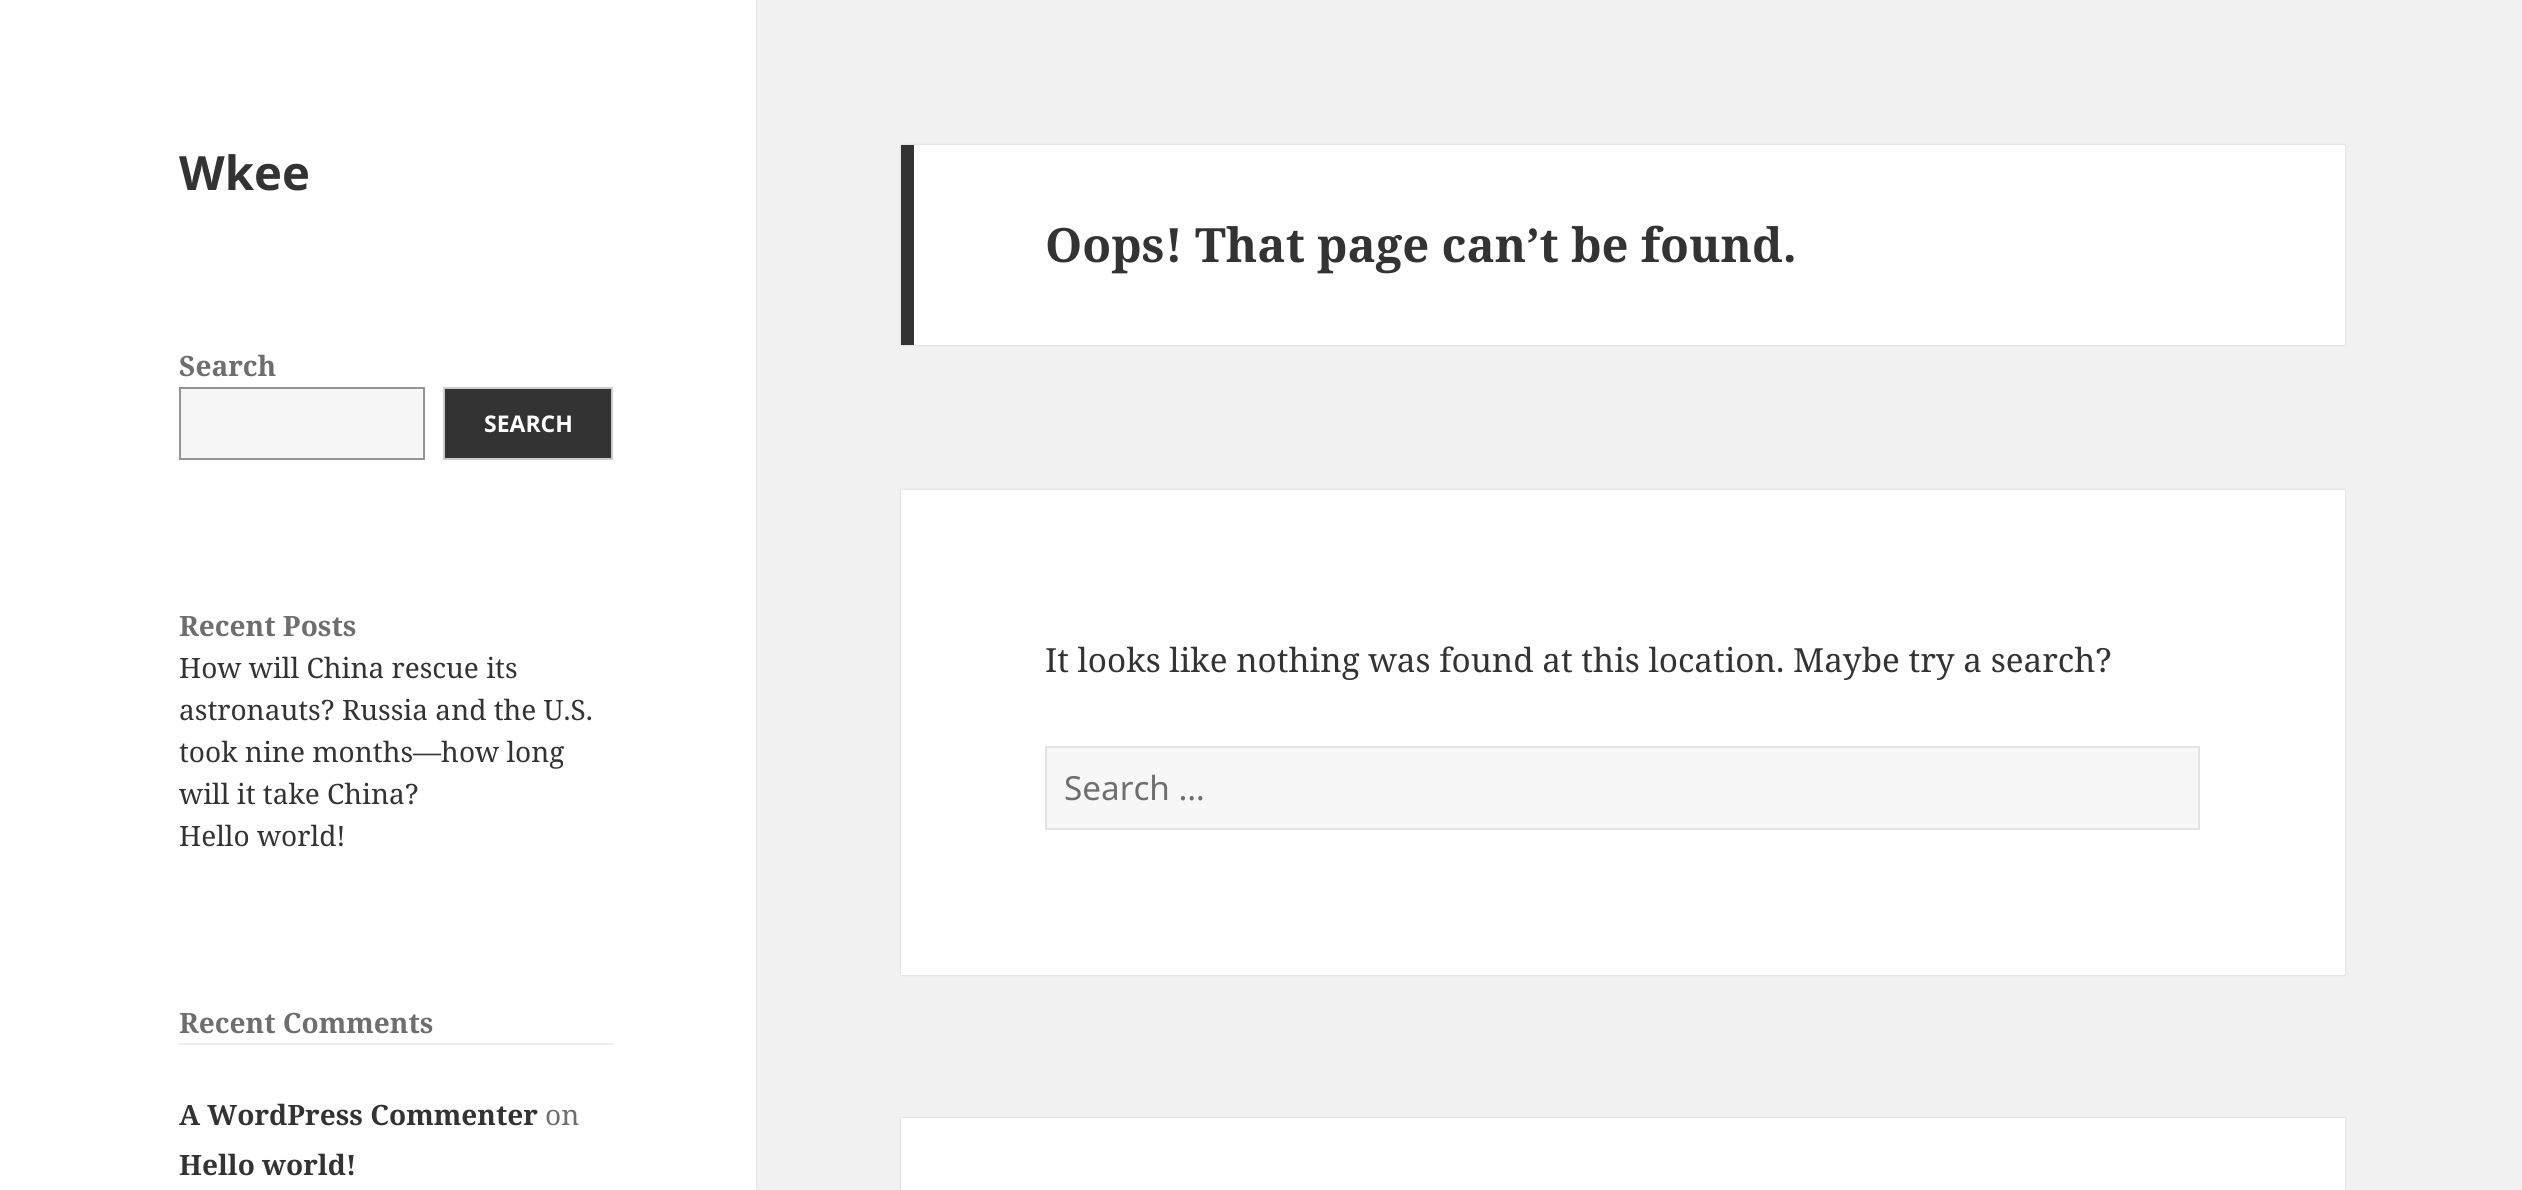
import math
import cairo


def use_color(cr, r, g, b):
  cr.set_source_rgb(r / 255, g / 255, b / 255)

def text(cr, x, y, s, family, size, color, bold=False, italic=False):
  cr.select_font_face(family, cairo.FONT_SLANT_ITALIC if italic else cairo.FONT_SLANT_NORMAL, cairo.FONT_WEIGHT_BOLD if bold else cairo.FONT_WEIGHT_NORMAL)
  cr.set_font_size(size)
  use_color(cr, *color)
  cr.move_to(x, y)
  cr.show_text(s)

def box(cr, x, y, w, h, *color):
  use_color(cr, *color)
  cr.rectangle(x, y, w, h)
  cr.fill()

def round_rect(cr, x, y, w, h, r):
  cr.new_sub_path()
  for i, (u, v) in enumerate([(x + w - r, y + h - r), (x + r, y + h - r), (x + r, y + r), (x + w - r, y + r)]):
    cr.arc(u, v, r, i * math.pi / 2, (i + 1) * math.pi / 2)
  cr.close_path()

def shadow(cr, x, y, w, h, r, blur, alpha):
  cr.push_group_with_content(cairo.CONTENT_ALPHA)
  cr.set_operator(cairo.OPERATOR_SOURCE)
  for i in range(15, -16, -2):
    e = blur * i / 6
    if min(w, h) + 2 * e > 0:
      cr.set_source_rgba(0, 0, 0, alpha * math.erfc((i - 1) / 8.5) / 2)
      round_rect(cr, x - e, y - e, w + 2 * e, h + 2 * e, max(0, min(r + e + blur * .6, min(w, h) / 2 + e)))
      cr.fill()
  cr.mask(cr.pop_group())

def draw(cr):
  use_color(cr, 241, 241, 241)
  cr.paint()
  use_color(cr, 0, 0, 0)
  shadow(cr, 0, 0, 756, 1190, 0, 1, 0.15)
  box(cr, 0, 0, 756, 1190, 255, 255, 255)
  use_color(cr, 247, 247, 247)
  cr.rectangle(180, 388, 244, 71)
  cr.fill_preserve()
  use_color(cr, 148, 148, 148)
  cr.stroke()
  use_color(cr, 51, 51, 51)
  cr.rectangle(444, 388, 168, 71)
  cr.fill_preserve()
  use_color(cr, 204, 204, 204)
  cr.stroke()
  box(cr, 179, 1043, 434, 2, 235, 235, 235)
  use_color(cr, 0, 0, 0)
  shadow(cr, 901, 145, 1444, 200, 0, 1, 0.15)
  box(cr, 914, 145, 1431, 200, 255, 255, 255)
  box(cr, 901, 145, 13, 200, 51, 51, 51)
  use_color(cr, 0, 0, 0)
  shadow(cr, 901, 490, 1444, 485, 0, 1, 0.15)
  box(cr, 901, 490, 1444, 485, 255, 255, 255)
  use_color(cr, 247, 247, 247)
  cr.rectangle(1046, 747, 1153, 82)
  cr.fill_preserve()
  use_color(cr, 227, 227, 227)
  cr.stroke()
  use_color(cr, 0, 0, 0)
  shadow(cr, 901, 1118, 1444, 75, 0, 1, 0.15)
  box(cr, 901, 1118, 1444, 72, 255, 255, 255)
  text(cr, 179, 190, "Wkee", "Noto Sans", 47.25, (51, 51, 51), bold=True)
  text(cr, 179, 376, "Search", "Noto Serif", 28, (110, 110, 110), bold=True)
  text(cr, 484, 432, "SEARCH", "Noto Sans", 23, (255, 255, 255), bold=True)
  text(cr, 179, 636, "Recent Posts", "Noto Serif", 28, (110, 110, 110), bold=True)
  text(cr, 179, 678, "How will China rescue its", "Noto Serif", 28, (51, 51, 51))
  text(cr, 179, 720, "astronauts? Russia and the U.S.", "Noto Serif", 28, (51, 51, 51))
  text(cr, 179, 762, "took nine months—how long", "Noto Serif", 28, (51, 51, 51))
  text(cr, 179, 804, "will it take China?", "Noto Serif", 28, (51, 51, 51))
  text(cr, 179, 846, "Hello world!", "Noto Serif", 28, (51, 51, 51))
  text(cr, 179, 1033, "Recent Comments", "Noto Serif", 28, (110, 110, 110), bold=True)
  text(cr, 179, 1125, "A WordPress Commenter", "Noto Serif", 28, (51, 51, 51), bold=True)
  text(cr, 545, 1125, "on", "Noto Serif", 28, (110, 110, 110))
  text(cr, 179, 1175, "Hello world!", "Noto Serif", 28, (51, 51, 51), bold=True)
  text(cr, 1045, 262, "Oops! That page can’t be found.", "Noto Serif", 47.25, (51, 51, 51), bold=True)
  text(cr, 1045, 672, "It looks like nothing was found at this location. Maybe try a search?", "Noto Serif", 33.25, (51, 51, 51))
  text(cr, 1064, 800, "Search …", "Noto Sans", 33.25, (110, 110, 110))


surface = cairo.ImageSurface(cairo.FORMAT_RGB24, 2522, 1190)
cr = cairo.Context(surface)
options = cairo.FontOptions()
options.set_hint_metrics(cairo.HINT_METRICS_OFF)
options.set_hint_style(cairo.HINT_STYLE_NONE)
cr.set_font_options(options)
cr.set_miter_limit(4)
draw(cr)
surface.write_to_png("out.png")
